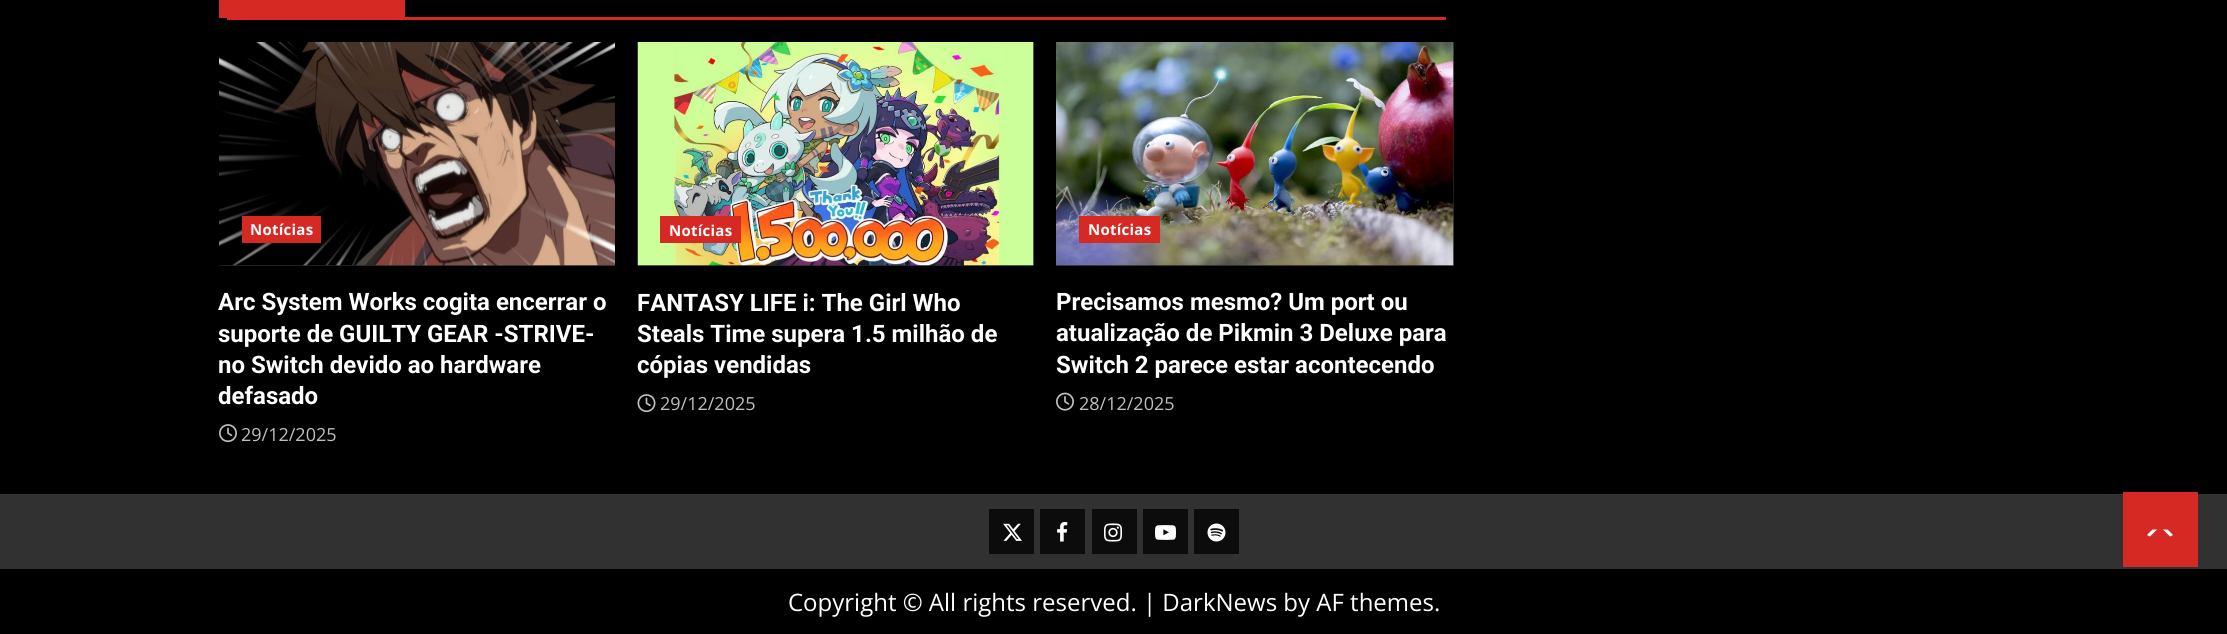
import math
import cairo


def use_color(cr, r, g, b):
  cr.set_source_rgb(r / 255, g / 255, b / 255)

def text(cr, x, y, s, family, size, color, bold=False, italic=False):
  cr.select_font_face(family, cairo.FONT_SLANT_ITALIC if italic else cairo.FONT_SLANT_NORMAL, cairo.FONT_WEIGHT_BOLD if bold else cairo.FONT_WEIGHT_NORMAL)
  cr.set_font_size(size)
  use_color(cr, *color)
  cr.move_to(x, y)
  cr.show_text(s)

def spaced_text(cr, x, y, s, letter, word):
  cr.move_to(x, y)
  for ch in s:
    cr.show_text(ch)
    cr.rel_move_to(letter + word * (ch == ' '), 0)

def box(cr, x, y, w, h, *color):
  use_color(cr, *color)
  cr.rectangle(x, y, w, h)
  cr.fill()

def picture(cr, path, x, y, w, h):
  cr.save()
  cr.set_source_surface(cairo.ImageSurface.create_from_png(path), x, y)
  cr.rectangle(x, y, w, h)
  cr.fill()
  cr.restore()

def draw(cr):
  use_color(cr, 0, 0, 0)
  cr.paint()
  box(cr, 227, 17, 1219, 3, 215, 41, 36)
  box(cr, 219, 0, 186, 18, 215, 41, 36)
  box(cr, 219, 265, 396, 1, 38, 38, 38)
  picture(cr, "img_01.png", 219, 42, 396, 224)
  box(cr, 242, 216, 79, 27, 215, 41, 36)
  picture(cr, "img_02.png", 219, 424, 18, 19)
  box(cr, 638, 42, 396, 224, 38, 38, 38)
  picture(cr, "img_03.png", 637, 42, 397, 224)
  box(cr, 660, 216, 81, 27, 215, 41, 36)
  picture(cr, "img_04.png", 637, 394, 19, 19)
  box(cr, 1056, 42, 398, 224, 38, 38, 38)
  picture(cr, "img_05.png", 1056, 42, 398, 224)
  box(cr, 1079, 216, 81, 27, 215, 41, 36)
  picture(cr, "img_06.png", 1056, 392, 18, 19)
  box(cr, 0, 494, 2227, 75, 49, 49, 49)
  box(cr, 989, 509, 45, 45, 12, 12, 12)
  picture(cr, "img_07.png", 1003, 523, 19, 18)
  box(cr, 1040, 509, 45, 45, 12, 12, 12)
  picture(cr, "img_08.png", 1057, 522, 11, 20)
  box(cr, 1092, 509, 45, 45, 12, 12, 12)
  picture(cr, "img_09.png", 1104, 523, 18, 19)
  box(cr, 1143, 509, 45, 45, 12, 12, 12)
  picture(cr, "img_10.png", 1155, 525, 21, 15)
  box(cr, 1194, 509, 45, 45, 12, 12, 12)
  picture(cr, "img_11.png", 1207, 523, 19, 19)
  box(cr, 2123, 492, 75, 75, 215, 41, 36)
  use_color(cr, 255, 255, 255)
  cr.new_path()
  cr.move_to(2152.5, 537)
  cr.line_to(2167.5, 537)
  cr.curve_to(2169.5, 537, 2171.5, 536, 2173, 535)
  cr.line_to(2167.5, 529.5)
  cr.line_to(2152.5, 529.5)
  cr.line_to(2147, 535)
  cr.curve_to(2148.5, 536, 2150.5, 537, 2152.5, 537)
  cr.close_path()
  cr.fill()
  use_color(cr, 215, 41, 36)
  cr.new_path()
  cr.move_to(2175, 541.5)
  cr.line_to(2145, 541.5)
  cr.line_to(2160, 526.5)
  cr.close_path()
  cr.fill()
  cr.select_font_face("Open Sans", cairo.FONT_SLANT_NORMAL, cairo.FONT_WEIGHT_BOLD)
  cr.set_font_size(15)
  use_color(cr, 255, 255, 255)
  spaced_text(cr, 250, 235, "Notícias", 0.25, 0)
  text(cr, 218, 310, "Arc System Works cogita encerrar o", "Roboto", 24, (255, 255, 255), bold=True)
  text(cr, 218, 342, "suporte de GUILTY GEAR -STRIVE-", "Roboto", 24, (255, 255, 255), bold=True)
  text(cr, 218, 373, "no Switch devido ao hardware", "Roboto", 24, (255, 255, 255), bold=True)
  text(cr, 218, 404, "defasado", "Roboto", 24, (255, 255, 255), bold=True)
  text(cr, 241, 441, "29/12/2025", "Open Sans", 18, (191, 191, 191))
  cr.select_font_face("Open Sans", cairo.FONT_SLANT_NORMAL, cairo.FONT_WEIGHT_BOLD)
  cr.set_font_size(15)
  use_color(cr, 255, 255, 255)
  spaced_text(cr, 669, 236, "Notícias", 0.25, 0)
  text(cr, 637, 311, "FANTASY LIFE i: The Girl Who", "Roboto", 24, (255, 255, 255), bold=True)
  text(cr, 637, 342, "Steals Time supera 1.5 milhão de", "Roboto", 24, (255, 255, 255), bold=True)
  text(cr, 637, 373, "cópias vendidas", "Roboto", 24, (255, 255, 255), bold=True)
  text(cr, 660, 410, "29/12/2025", "Open Sans", 18, (191, 191, 191))
  cr.select_font_face("Open Sans", cairo.FONT_SLANT_NORMAL, cairo.FONT_WEIGHT_BOLD)
  cr.set_font_size(15)
  use_color(cr, 255, 255, 255)
  spaced_text(cr, 1088, 235, "Notícias", 0.25, 0)
  text(cr, 1056, 310, "Precisamos mesmo? Um port ou", "Roboto", 24, (255, 255, 255), bold=True)
  text(cr, 1056, 341, "atualização de Pikmin 3 Deluxe para", "Roboto", 24, (255, 255, 255), bold=True)
  text(cr, 1056, 373, "Switch 2 parece estar acontecendo", "Roboto", 24, (255, 255, 255), bold=True)
  text(cr, 1079, 410, "28/12/2025", "Open Sans", 18, (191, 191, 191))
  text(cr, 788, 611, "Copyright © All rights reserved. | DarkNews by AF themes.", "Open Sans", 24, (255, 255, 255))


surface = cairo.ImageSurface(cairo.FORMAT_RGB24, 2227, 634)
cr = cairo.Context(surface)
options = cairo.FontOptions()
options.set_hint_metrics(cairo.HINT_METRICS_OFF)
options.set_hint_style(cairo.HINT_STYLE_NONE)
cr.set_font_options(options)
cr.set_miter_limit(4)
draw(cr)
surface.write_to_png("out.png")
